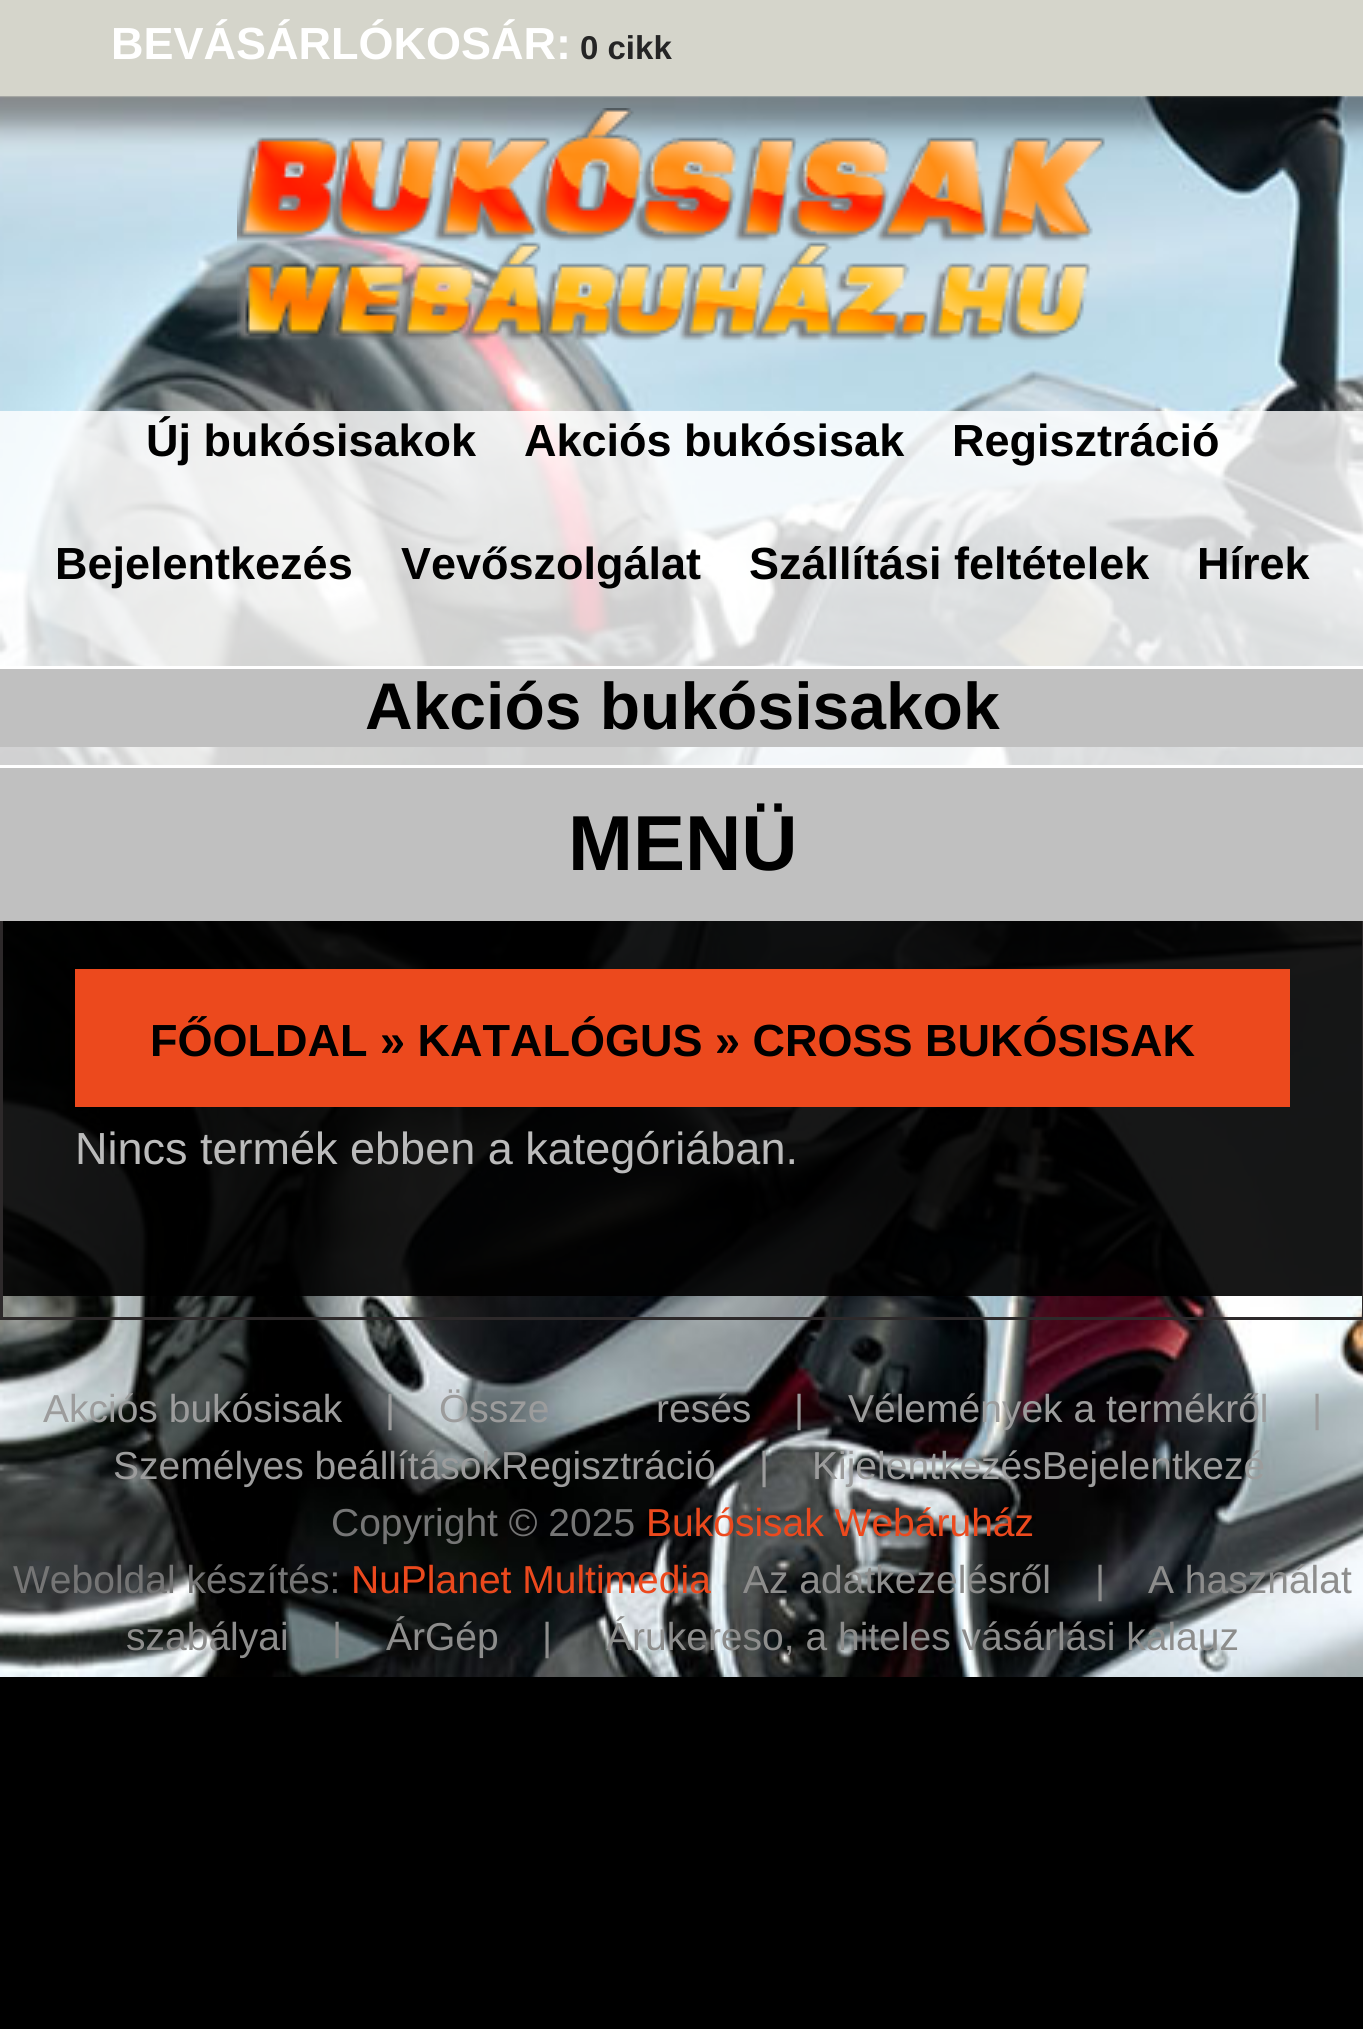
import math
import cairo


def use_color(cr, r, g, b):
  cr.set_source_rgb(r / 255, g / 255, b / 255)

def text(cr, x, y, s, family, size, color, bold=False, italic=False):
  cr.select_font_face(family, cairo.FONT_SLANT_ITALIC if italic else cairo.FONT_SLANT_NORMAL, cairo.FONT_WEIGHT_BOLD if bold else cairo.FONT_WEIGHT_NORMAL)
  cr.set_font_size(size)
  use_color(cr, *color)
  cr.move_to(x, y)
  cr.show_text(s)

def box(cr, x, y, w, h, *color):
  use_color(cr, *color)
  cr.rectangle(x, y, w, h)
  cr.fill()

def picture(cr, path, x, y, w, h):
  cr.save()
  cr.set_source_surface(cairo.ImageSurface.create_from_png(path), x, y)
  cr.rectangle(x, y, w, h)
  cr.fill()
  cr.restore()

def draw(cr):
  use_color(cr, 0, 0, 0)
  cr.paint()
  picture(cr, "img_01.png", 0, 96, 1363, 1581)
  box(cr, 0, 0, 1363, 96, 213, 213, 203)
  picture(cr, "img_02.png", 237, 108, 868, 235)
  cr.set_source_rgba(1, 1, 1, 0.81)
  cr.rectangle(0, 411, 1363, 354)
  cr.fill()
  box(cr, 0, 669, 1363, 78, 192, 192, 192)
  box(cr, 0, 666, 1363, 3, 255, 255, 255)
  cr.rectangle(1.5, 910.5, 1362, 408)
  use_color(cr, 45, 41, 42)
  cr.set_line_width(3)
  cr.stroke()
  cr.set_source_rgba(0, 0, 0, 0.91)
  cr.rectangle(3, 921, 1359, 375)
  cr.fill()
  box(cr, 0, 768, 1363, 153, 192, 192, 192)
  box(cr, 0, 765, 1363, 3, 255, 255, 255)
  box(cr, 75, 969, 1215, 138, 236, 73, 29)
  text(cr, 111, 59, "BEVÁSÁRLÓKOSÁR:", "Liberation Sans", 45, (255, 255, 255), bold=True)
  text(cr, 580, 59, "0 cikk", "Liberation Sans", 33, (37, 37, 37), bold=True)
  text(cr, 146, 456, "Új bukósisakok", "Liberation Sans", 45, (0, 0, 0), bold=True)
  text(cr, 524, 456, "Akciós bukósisak", "Liberation Sans", 45, (0, 0, 0), bold=True)
  text(cr, 952, 456, "Regisztráció", "Liberation Sans", 45, (0, 0, 0), bold=True)
  text(cr, 55, 579, "Bejelentkezés", "Liberation Sans", 45, (0, 0, 0), bold=True)
  text(cr, 401, 579, "Vevőszolgálat", "Liberation Sans", 45, (0, 0, 0), bold=True)
  text(cr, 749, 579, "Szállítási feltételek", "Liberation Sans", 45, (0, 0, 0), bold=True)
  text(cr, 1197, 579, "Hírek", "Liberation Sans", 45, (0, 0, 0), bold=True)
  text(cr, 365, 729, "Akciós bukósisakok", "Liberation Sans", 66, (0, 0, 0), bold=True)
  text(cr, 568, 870, "MENÜ", "Liberation Sans", 78, (0, 0, 0), bold=True)
  text(cr, 150, 1056, "FŐOLDAL » KATALÓGUS » CROSS BUKÓSISAK", "Liberation Sans", 45, (0, 0, 0), bold=True)
  text(cr, 75, 1164, "Nincs termék ebben a kategóriában.", "Liberation Sans", 45, (187, 187, 187))
  text(cr, 43, 1422, "Akciós bukósisak", "Liberation Sans", 39, (156, 156, 156))
  text(cr, 385, 1422, "|", "Liberation Sans", 39, (156, 156, 156))
  text(cr, 439, 1422, "Össze", "Liberation Sans", 39, (156, 156, 156))
  text(cr, 656, 1422, "resés", "Liberation Sans", 39, (156, 156, 156))
  text(cr, 794, 1422, "|", "Liberation Sans", 39, (156, 156, 156))
  text(cr, 848, 1422, "Vélemények a termékről", "Liberation Sans", 39, (156, 156, 156))
  text(cr, 1312, 1422, "|", "Liberation Sans", 39, (156, 156, 156))
  text(cr, 113, 1479, "Személyes beállításokRegisztráció", "Liberation Sans", 39, (156, 156, 156))
  text(cr, 759, 1479, "|", "Liberation Sans", 39, (156, 156, 156))
  text(cr, 812, 1479, "KijelentkezésBejelentkezé", "Liberation Sans", 39, (156, 156, 156))
  text(cr, 331, 1536, "Copyright © 2025", "Liberation Sans", 39, (117, 117, 117))
  text(cr, 646, 1536, "Bukósisak Webáruház", "Liberation Sans", 39, (236, 73, 29))
  text(cr, 13, 1593, "Weboldal készítés:", "Liberation Sans", 39, (117, 117, 117))
  text(cr, 351, 1593, "NuPlanet Multimedia", "Liberation Sans", 39, (236, 73, 29))
  text(cr, 743, 1593, "Az adatkezelésről", "Liberation Sans", 39, (141, 141, 140))
  text(cr, 1095, 1593, "|", "Liberation Sans", 39, (141, 141, 140))
  text(cr, 1148, 1593, "A használat", "Liberation Sans", 39, (141, 141, 140))
  text(cr, 126, 1650, "szabályai", "Liberation Sans", 39, (141, 141, 140))
  text(cr, 332, 1650, "|", "Liberation Sans", 39, (141, 141, 140))
  text(cr, 386, 1650, "ÁrGép", "Liberation Sans", 39, (141, 141, 140))
  text(cr, 542, 1650, "|", "Liberation Sans", 39, (141, 141, 140))
  text(cr, 606, 1650, "Árukereso, a hiteles vásárlási kalauz", "Liberation Sans", 39, (141, 141, 140))


surface = cairo.ImageSurface(cairo.FORMAT_RGB24, 1363, 2029)
cr = cairo.Context(surface)
options = cairo.FontOptions()
options.set_hint_metrics(cairo.HINT_METRICS_OFF)
options.set_hint_style(cairo.HINT_STYLE_NONE)
cr.set_font_options(options)
cr.set_miter_limit(4)
draw(cr)
surface.write_to_png("out.png")
